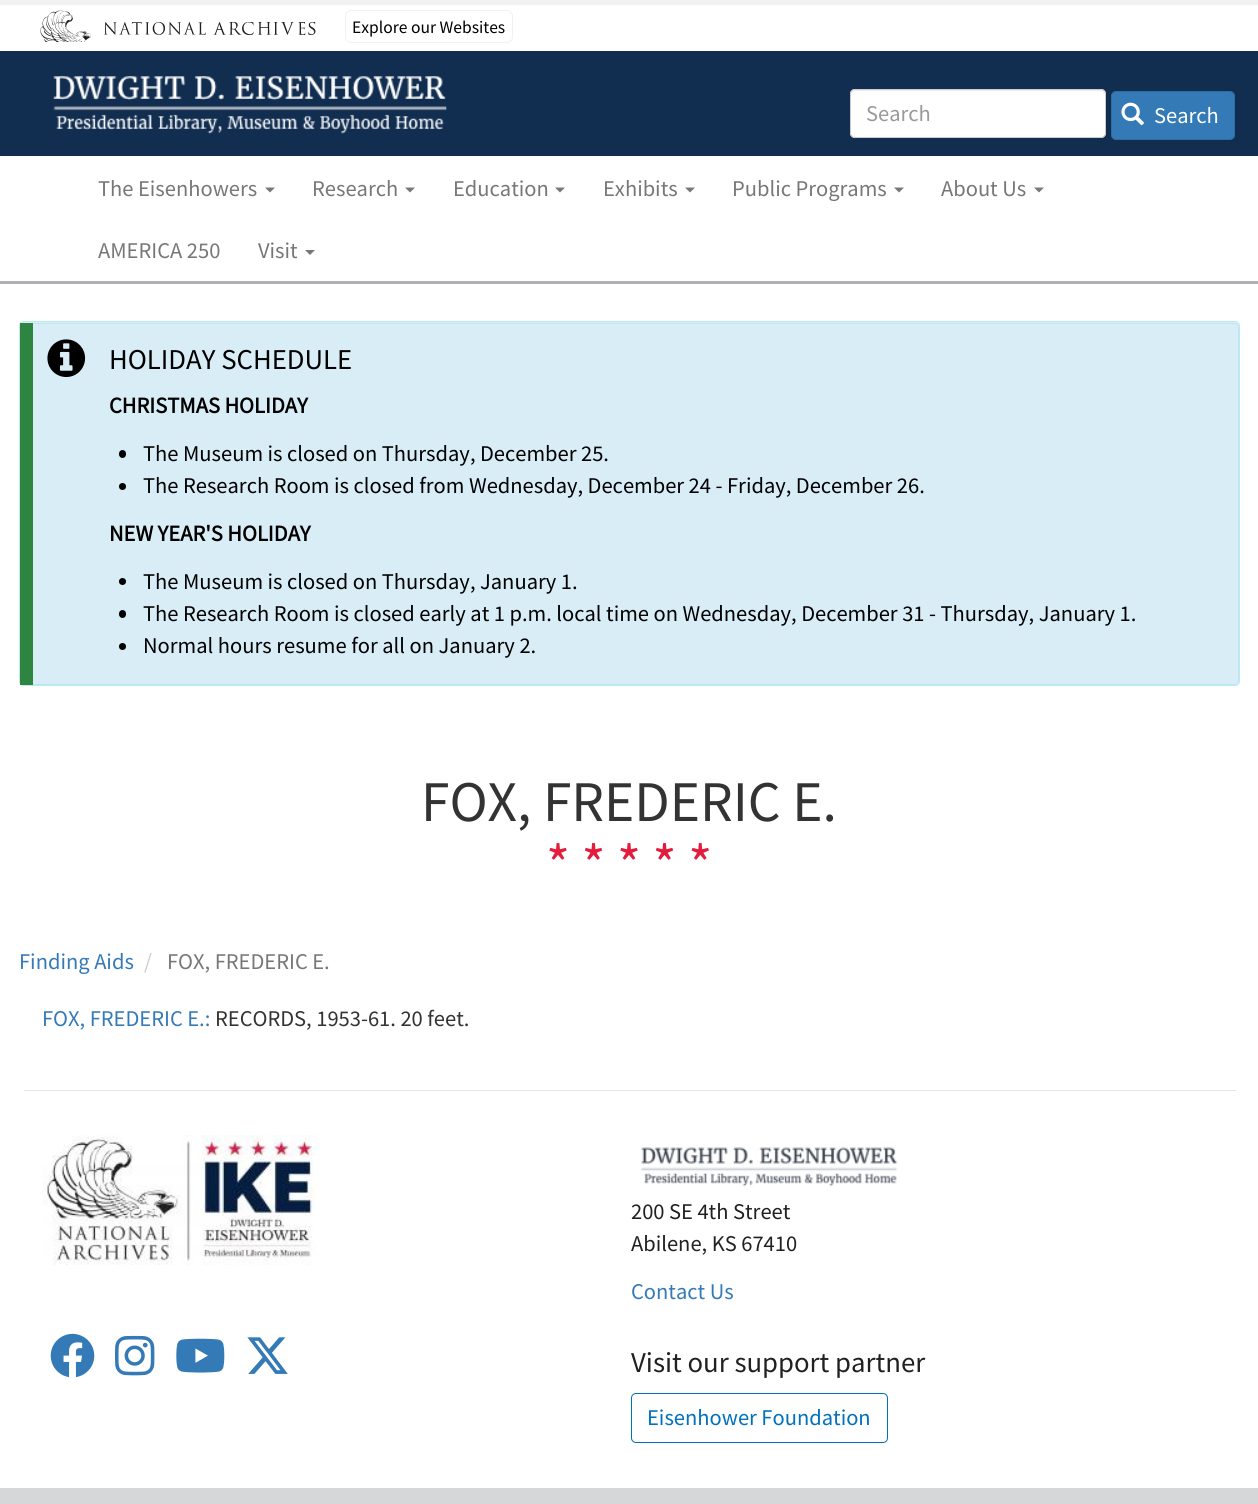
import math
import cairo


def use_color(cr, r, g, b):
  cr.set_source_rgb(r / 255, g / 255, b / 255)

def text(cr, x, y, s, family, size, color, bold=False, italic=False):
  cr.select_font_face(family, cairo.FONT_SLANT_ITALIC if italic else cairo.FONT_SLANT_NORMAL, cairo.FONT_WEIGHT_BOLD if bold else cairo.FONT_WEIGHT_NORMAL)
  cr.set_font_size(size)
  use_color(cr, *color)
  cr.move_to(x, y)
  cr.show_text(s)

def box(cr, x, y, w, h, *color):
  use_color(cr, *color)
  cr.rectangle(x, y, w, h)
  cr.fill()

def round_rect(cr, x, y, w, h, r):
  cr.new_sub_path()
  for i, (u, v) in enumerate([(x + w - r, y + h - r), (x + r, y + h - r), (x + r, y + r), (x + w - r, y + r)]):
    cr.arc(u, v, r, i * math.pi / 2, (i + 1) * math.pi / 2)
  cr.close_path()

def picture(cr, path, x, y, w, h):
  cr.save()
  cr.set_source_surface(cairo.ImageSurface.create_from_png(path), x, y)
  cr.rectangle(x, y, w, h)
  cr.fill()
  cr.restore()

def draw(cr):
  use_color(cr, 255, 255, 255)
  cr.paint()
  picture(cr, "img_01.png", 40, 10, 276, 32)
  round_rect(cr, 345.5, 10.5, 167, 32, 5.5)
  use_color(cr, 241, 241, 241)
  cr.set_line_width(1)
  cr.stroke()
  box(cr, 0, 0, 1258, 5, 241, 241, 241)
  box(cr, 0, 281, 1258, 3, 174, 176, 181)
  box(cr, 0, 51, 1258, 105, 17, 46, 81)
  picture(cr, "img_02.png", 53, 76, 394, 58)
  use_color(cr, 255, 255, 255)
  round_rect(cr, 850, 89, 256, 49, 5)
  cr.fill()
  use_color(cr, 236, 236, 236)
  cr.new_path()
  cr.move_to(855, 91)
  cr.line_to(1101, 91)
  cr.curve_to(1103, 91, 1105, 93, 1105, 95)
  cr.line_to(1105, 94)
  cr.curve_to(1105, 92, 1103, 90, 1101, 90)
  cr.line_to(855, 90)
  cr.curve_to(853, 90, 851, 92, 851, 94)
  cr.line_to(851, 95)
  cr.curve_to(851, 93, 853, 91, 855, 91)
  cr.close_path()
  cr.fill()
  round_rect(cr, 850.5, 89.5, 255, 48, 4.5)
  use_color(cr, 204, 204, 204)
  cr.stroke()
  use_color(cr, 51, 122, 183)
  round_rect(cr, 1111.5, 91.5, 123, 48, 4.5)
  cr.fill_preserve()
  use_color(cr, 46, 109, 164)
  cr.stroke()
  picture(cr, "img_03.png", 1121, 102, 23, 24)
  use_color(cr, 119, 119, 119)
  cr.new_path()
  cr.move_to(265, 187.5)
  cr.line_to(275, 187.5)
  cr.line_to(270, 192.5)
  cr.close_path()
  cr.fill()
  cr.new_path()
  cr.move_to(405, 187.5)
  cr.line_to(415, 187.5)
  cr.line_to(410, 192.5)
  cr.close_path()
  cr.fill()
  cr.new_path()
  cr.move_to(555, 187.5)
  cr.line_to(565, 187.5)
  cr.line_to(560, 192.5)
  cr.close_path()
  cr.fill()
  cr.new_path()
  cr.move_to(685, 187.5)
  cr.line_to(695, 187.5)
  cr.line_to(690, 192.5)
  cr.close_path()
  cr.fill()
  cr.new_path()
  cr.move_to(894, 187.5)
  cr.line_to(904, 187.5)
  cr.line_to(899, 192.5)
  cr.close_path()
  cr.fill()
  cr.new_path()
  cr.move_to(1034, 187.5)
  cr.line_to(1044, 187.5)
  cr.line_to(1039, 192.5)
  cr.close_path()
  cr.fill()
  cr.new_path()
  cr.move_to(305, 250)
  cr.line_to(315, 250)
  cr.line_to(310, 255)
  cr.close_path()
  cr.fill()
  use_color(cr, 217, 237, 247)
  round_rect(cr, 19.5, 321.5, 1220, 364, 4.5)
  cr.fill_preserve()
  use_color(cr, 188, 232, 241)
  cr.stroke()
  use_color(cr, 217, 237, 247)
  round_rect(cr, 20, 323, 1219, 362, 5)
  cr.fill()
  picture(cr, "img_04.png", 47, 339, 39, 38)
  round_rect(cr, 20.5, 323.5, 1218, 361, 4.5)
  use_color(cr, 188, 232, 241)
  cr.stroke()
  box(cr, 20, 323, 13, 362, 46, 133, 64)
  use_color(cr, 0, 0, 0)
  round_rect(cr, 119, 450, 7, 8, 3.5)
  cr.fill()
  cr.arc(122.5, 486.5, 3.5, 0, 2 * math.pi)
  cr.fill()
  cr.arc(122.5, 581.5, 3.5, 0, 2 * math.pi)
  cr.fill()
  round_rect(cr, 119, 610, 7, 8, 3.5)
  cr.fill()
  cr.arc(122.5, 646.5, 3.5, 0, 2 * math.pi)
  cr.fill()
  box(cr, 24, 1090, 1212, 1, 229, 229, 229)
  picture(cr, "img_05.png", 42, 1135, 276, 130)
  picture(cr, "img_06.png", 640, 1147, 258, 40)
  picture(cr, "img_07.png", 50, 1333, 45, 45)
  picture(cr, "img_08.png", 115, 1335, 40, 41)
  picture(cr, "img_09.png", 176, 1338, 49, 35)
  picture(cr, "img_10.png", 247, 1337, 41, 37)
  round_rect(cr, 631.5, 1393.5, 256, 49, 4.5)
  use_color(cr, 0, 113, 188)
  cr.stroke()
  box(cr, 0, 1488, 1258, 16, 214, 215, 217)
  text(cr, 352, 33, "Explore our Websites", "Source Sans Pro", 17.5, (0, 0, 0))
  text(cr, 866, 121, "Search", "Source Sans Pro", 22.5, (153, 153, 153))
  text(cr, 1154, 123, "Search", "Source Sans Pro", 22.5, (255, 255, 255))
  text(cr, 98, 196, "The Eisenhowers", "Source Sans Pro", 22.5, (119, 119, 119))
  text(cr, 312, 196, "Research", "Source Sans Pro", 22.5, (119, 119, 119))
  text(cr, 453, 196, "Education", "Source Sans Pro", 22.5, (119, 119, 119))
  text(cr, 603, 196, "Exhibits", "Source Sans Pro", 22.5, (119, 119, 119))
  text(cr, 732, 196, "Public Programs", "Source Sans Pro", 22.5, (119, 119, 119))
  text(cr, 941, 196, "About Us", "Source Sans Pro", 22.5, (119, 119, 119))
  text(cr, 98, 258, "AMERICA 250", "Source Sans Pro", 22.5, (119, 119, 119))
  text(cr, 258, 258, "Visit", "Source Sans Pro", 22.5, (119, 119, 119))
  text(cr, 109, 369, "HOLIDAY SCHEDULE", "Source Sans Pro", 28.75, (0, 0, 0))
  text(cr, 109, 413, "CHRISTMAS HOLIDAY", "Source Sans Pro", 22.5, (0, 0, 0), bold=True)
  text(cr, 143, 461, "The Museum is closed on Thursday, December 25.", "Source Sans Pro", 22.5, (0, 0, 0))
  text(cr, 143, 493, "The Research Room is closed from Wednesday, December 24 - Friday, December 26.", "Source Sans Pro", 22.5, (0, 0, 0))
  text(cr, 109, 541, "NEW YEAR'S HOLIDAY", "Source Sans Pro", 22.5, (0, 0, 0), bold=True)
  text(cr, 143, 589, "The Museum is closed on Thursday, January 1.", "Source Sans Pro", 22.5, (0, 0, 0))
  text(cr, 143, 621, "The Research Room is closed early at 1 p.m. local time on Wednesday, December 31 - Thursday, January 1.", "Source Sans Pro", 22.5, (0, 0, 0))
  text(cr, 143, 653, "Normal hours resume for all on January 2.", "Source Sans Pro", 22.5, (0, 0, 0))
  text(cr, 421, 821, "FOX, FREDERIC E.", "Source Sans Pro", 57.5, (51, 51, 51))
  text(cr, 546, 884, "* * * * *", "Source Sans Pro", 57.5, (227, 28, 61))
  text(cr, 19, 969, "Finding Aids", "Source Sans Pro", 22.5, (51, 122, 183))
  text(cr, 144, 969, "/", "Source Sans Pro", 22.5, (204, 204, 204))
  text(cr, 167, 969, "FOX, FREDERIC E.", "Source Sans Pro", 22.5, (119, 119, 119))
  text(cr, 42, 1026, "FOX, FREDERIC E.:", "Source Sans Pro", 22.5, (51, 122, 183))
  text(cr, 215, 1026, "RECORDS, 1953-61. 20 feet.", "Source Sans Pro", 22.5, (51, 51, 51))
  text(cr, 631, 1219, "200 SE 4th Street", "Source Sans Pro", 22.5, (33, 33, 33))
  text(cr, 631, 1251, "Abilene, KS 67410", "Source Sans Pro", 22.5, (33, 33, 33))
  text(cr, 631, 1299, "Contact Us", "Source Sans Pro", 22.5, (51, 122, 183))
  text(cr, 631, 1372, "Visit our support partner", "Source Sans Pro", 28.75, (33, 33, 33))
  text(cr, 647, 1425, "Eisenhower Foundation", "Source Sans Pro", 22.5, (0, 113, 188))


surface = cairo.ImageSurface(cairo.FORMAT_RGB24, 1258, 1504)
cr = cairo.Context(surface)
options = cairo.FontOptions()
options.set_hint_metrics(cairo.HINT_METRICS_OFF)
options.set_hint_style(cairo.HINT_STYLE_NONE)
cr.set_font_options(options)
cr.set_miter_limit(4)
draw(cr)
surface.write_to_png("out.png")
